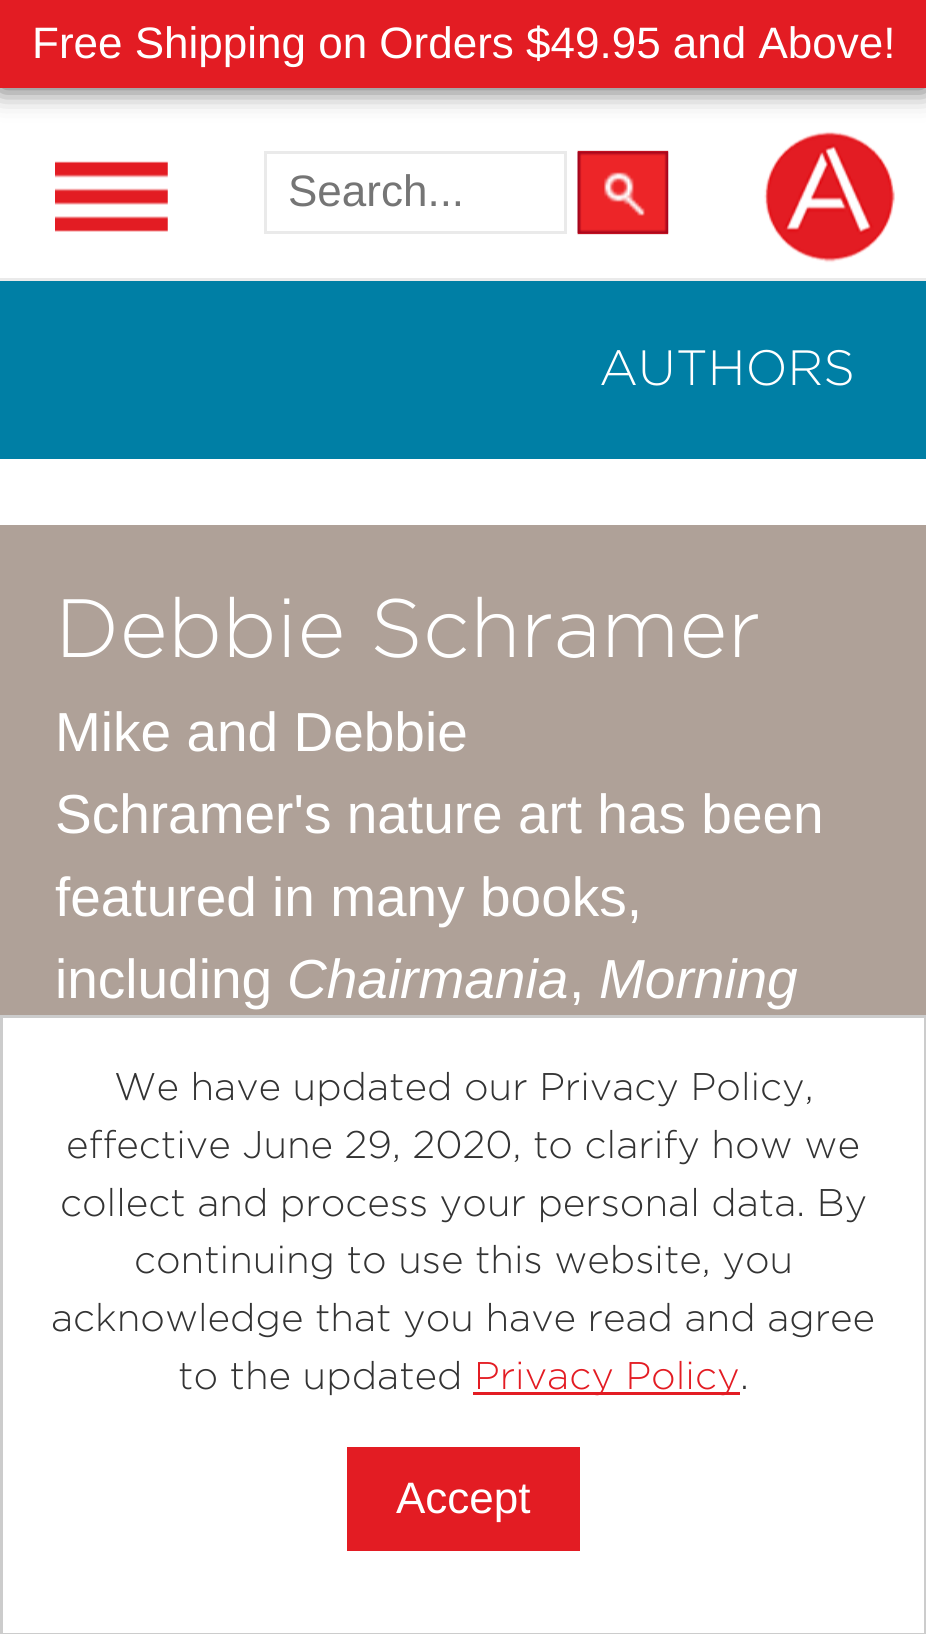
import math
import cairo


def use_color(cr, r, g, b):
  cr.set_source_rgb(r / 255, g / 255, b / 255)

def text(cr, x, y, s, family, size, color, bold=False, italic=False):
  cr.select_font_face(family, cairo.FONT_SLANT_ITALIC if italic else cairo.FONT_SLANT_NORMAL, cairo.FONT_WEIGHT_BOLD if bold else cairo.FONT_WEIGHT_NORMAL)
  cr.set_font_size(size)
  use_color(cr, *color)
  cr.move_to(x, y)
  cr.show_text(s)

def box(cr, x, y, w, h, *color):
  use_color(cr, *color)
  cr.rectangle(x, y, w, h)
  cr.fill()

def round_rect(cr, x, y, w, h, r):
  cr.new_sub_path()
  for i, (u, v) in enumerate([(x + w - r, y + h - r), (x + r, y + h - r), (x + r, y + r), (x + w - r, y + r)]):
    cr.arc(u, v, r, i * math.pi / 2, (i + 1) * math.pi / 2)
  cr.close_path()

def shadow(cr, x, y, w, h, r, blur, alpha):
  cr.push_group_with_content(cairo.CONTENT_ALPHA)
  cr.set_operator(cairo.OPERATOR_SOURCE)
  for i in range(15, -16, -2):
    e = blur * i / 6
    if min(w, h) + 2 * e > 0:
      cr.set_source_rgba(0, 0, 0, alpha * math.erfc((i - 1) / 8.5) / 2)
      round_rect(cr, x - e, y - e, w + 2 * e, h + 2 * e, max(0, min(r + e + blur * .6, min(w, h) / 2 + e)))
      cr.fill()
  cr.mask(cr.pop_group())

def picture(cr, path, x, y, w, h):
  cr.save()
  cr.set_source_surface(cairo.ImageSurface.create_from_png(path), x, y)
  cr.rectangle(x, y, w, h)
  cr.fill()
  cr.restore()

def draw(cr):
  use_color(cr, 255, 255, 255)
  cr.paint()
  use_color(cr, 0, 0, 0)
  shadow(cr, 0, 0, 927, 88, 0, 14, 0.7)
  box(cr, 0, 0, 926, 88, 227, 28, 35)
  box(cr, 0, 278, 926, 3, 234, 234, 234)
  picture(cr, "img_01.png", 55, 161, 113, 71)
  cr.rectangle(265.5, 152.5, 300, 80)
  cr.set_line_width(3)
  cr.stroke()
  box(cr, 578, 151, 90, 83, 237, 37, 40)
  picture(cr, "img_02.png", 577, 150, 92, 85)
  picture(cr, "img_03.png", 764, 131, 131, 132)
  box(cr, 0, 281, 926, 178, 0, 127, 165)
  box(cr, 0, 525, 926, 490, 175, 161, 152)
  cr.rectangle(1.5, 1016.5, 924, 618)
  use_color(cr, 204, 204, 204)
  cr.stroke()
  box(cr, 473, 1392, 267, 3, 227, 28, 35)
  box(cr, 347, 1447, 233, 104, 227, 28, 35)
  text(cr, 32, 58, "Free Shipping on Orders $49.95 and Above!", "Liberation Sans", 44, (255, 255, 255))
  text(cr, 288, 206, "Search...", "Liberation Sans", 44, (117, 117, 117))
  text(cr, 599, 385, "AUTHORS", "Gotham Light", 49.5, (255, 255, 255))
  text(cr, 55, 657, "Debbie Schramer", "Gotham Light", 82.5, (255, 255, 255))
  text(cr, 55, 751, "Mike and Debbie", "Liberation Sans", 55, (255, 255, 255))
  text(cr, 55, 833, "Schramer's nature art has been", "Liberation Sans", 55, (255, 255, 255))
  text(cr, 55, 916, "featured in many books,", "Liberation Sans", 55, (255, 255, 255))
  text(cr, 55, 998, "including", "Liberation Sans", 55, (255, 255, 255))
  text(cr, 287, 998, "Chairmania", "Liberation Sans", 55, (255, 255, 255), italic=True)
  text(cr, 569, 998, ",", "Liberation Sans", 55, (255, 255, 255))
  text(cr, 599, 998, "Morning", "Liberation Sans", 55, (255, 255, 255), italic=True)
  text(cr, 114, 1100, "We have updated our Privacy Policy,", "Gotham Light", 38.5, (51, 51, 51))
  text(cr, 66, 1158, "effective June 29, 2020, to clarify how we", "Gotham Light", 38.5, (51, 51, 51))
  text(cr, 60, 1216, "collect and process your personal data. By", "Gotham Light", 38.5, (51, 51, 51))
  text(cr, 134, 1273, "continuing to use this website, you", "Gotham Light", 38.5, (51, 51, 51))
  text(cr, 51, 1331, "acknowledge that you have read and agree", "Gotham Light", 38.5, (51, 51, 51))
  text(cr, 178, 1389, "to the updated", "Gotham Light", 38.5, (51, 51, 51))
  text(cr, 474, 1389, "Privacy Policy", "Gotham Light", 38.5, (227, 28, 35))
  text(cr, 740, 1389, ".", "Gotham Light", 38.5, (51, 51, 51))
  text(cr, 396, 1513, "Accept", "Liberation Sans", 44, (255, 255, 255))


surface = cairo.ImageSurface(cairo.FORMAT_RGB24, 926, 1634)
cr = cairo.Context(surface)
options = cairo.FontOptions()
options.set_hint_metrics(cairo.HINT_METRICS_OFF)
options.set_hint_style(cairo.HINT_STYLE_NONE)
cr.set_font_options(options)
cr.set_miter_limit(4)
draw(cr)
surface.write_to_png("out.png")
